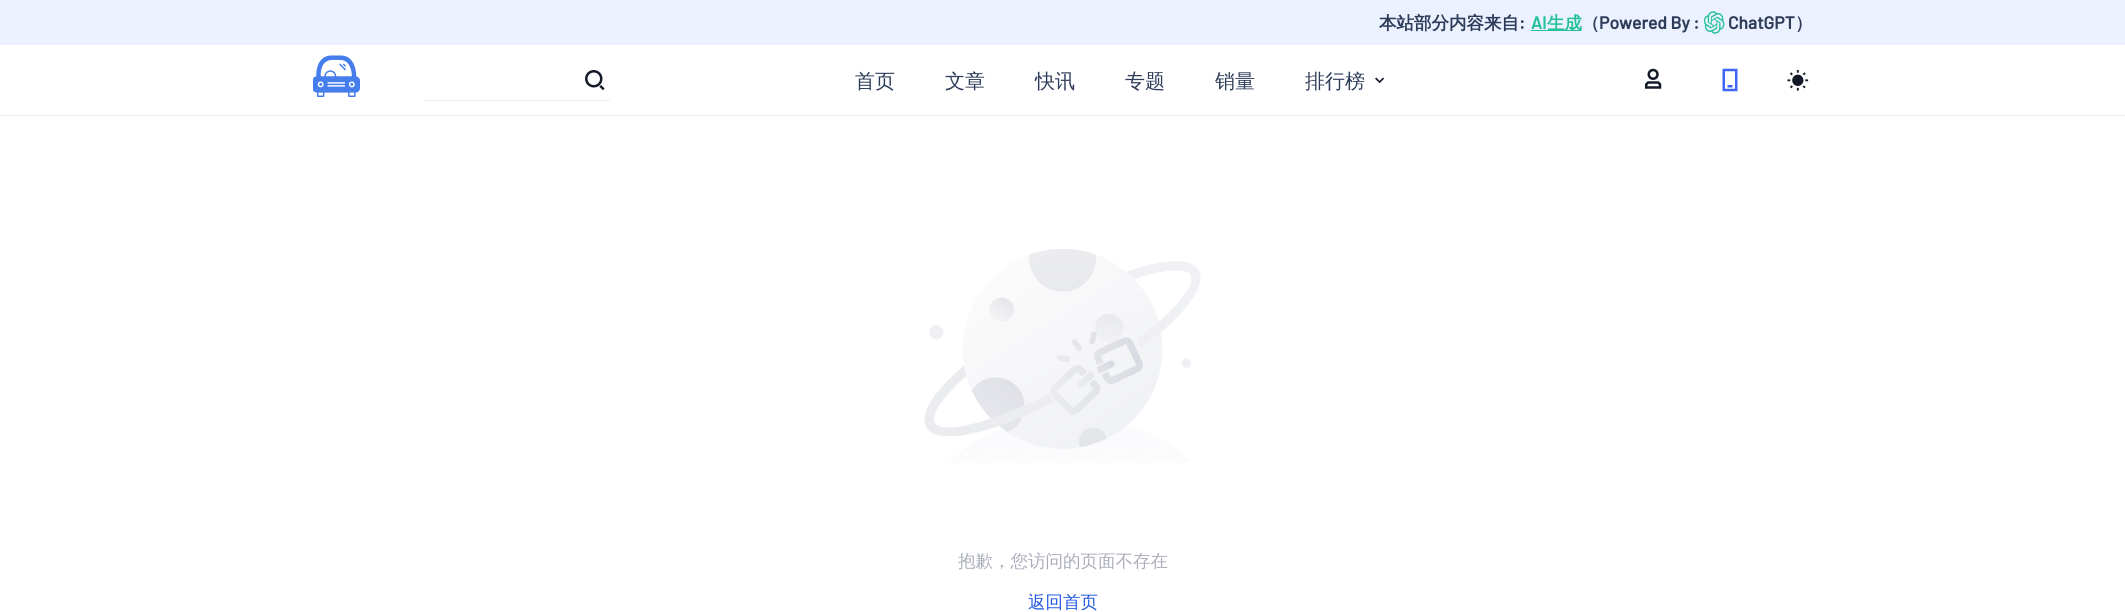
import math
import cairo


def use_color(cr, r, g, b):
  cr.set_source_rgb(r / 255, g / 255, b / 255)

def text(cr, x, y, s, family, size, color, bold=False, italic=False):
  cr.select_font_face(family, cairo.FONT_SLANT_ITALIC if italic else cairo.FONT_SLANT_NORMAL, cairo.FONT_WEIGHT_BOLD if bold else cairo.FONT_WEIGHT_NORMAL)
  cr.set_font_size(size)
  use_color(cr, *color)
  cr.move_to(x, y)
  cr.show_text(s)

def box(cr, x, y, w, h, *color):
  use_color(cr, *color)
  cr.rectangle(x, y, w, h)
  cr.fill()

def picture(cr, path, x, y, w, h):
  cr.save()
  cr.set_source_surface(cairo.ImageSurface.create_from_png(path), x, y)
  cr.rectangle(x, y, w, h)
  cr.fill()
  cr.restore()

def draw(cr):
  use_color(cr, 255, 255, 255)
  cr.paint()
  box(cr, 0, 115, 2125, 1, 237, 237, 237)
  box(cr, 0, 0, 2125, 45, 235, 241, 255)
  box(cr, 1531, 30, 50, 1, 37, 193, 150)
  picture(cr, "img_01.png", 1704, 11, 21, 23)
  picture(cr, "img_02.png", 313, 55, 47, 42)
  picture(cr, "img_03.png", 585, 70, 20, 21)
  box(cr, 423, 100, 187, 1, 237, 237, 237)
  picture(cr, "img_04.png", 1375, 77, 10, 7)
  picture(cr, "img_05.png", 1645, 68, 17, 21)
  picture(cr, "img_06.png", 1722, 68, 16, 24)
  picture(cr, "img_07.png", 1787, 70, 22, 21)
  picture(cr, "img_08.png", 924, 249, 277, 214)
  text(cr, 1379, 29, "本站部分内容来自", "WenQuanYi Zen Hei", 17.5, (45, 60, 89), bold=True)
  text(cr, 1519, 29, ":", "Barlow", 17.5, (45, 60, 89), bold=True)
  text(cr, 1531, 29, "AI", "Barlow", 17.5, (37, 193, 150), bold=True)
  text(cr, 1547, 29, "生成", "WenQuanYi Zen Hei", 17.5, (37, 193, 150), bold=True)
  text(cr, 1582, 29, "（", "WenQuanYi Zen Hei", 17.5, (45, 60, 89), bold=True)
  text(cr, 1599, 29, "Powered By :", "Barlow", 17.5, (45, 60, 89), bold=True)
  text(cr, 1728, 29, "ChatGPT", "Barlow", 17.5, (45, 60, 89), bold=True)
  text(cr, 1795, 29, "）", "WenQuanYi Zen Hei", 17.5, (45, 60, 89), bold=True)
  text(cr, 855, 88, "首页", "WenQuanYi Zen Hei Medium", 20, (45, 60, 89))
  text(cr, 945, 88, "文章", "WenQuanYi Zen Hei Medium", 20, (45, 60, 89))
  text(cr, 1035, 88, "快讯", "WenQuanYi Zen Hei Medium", 20, (45, 60, 89))
  text(cr, 1125, 88, "专题", "WenQuanYi Zen Hei Medium", 20, (45, 60, 89))
  text(cr, 1215, 88, "销量", "WenQuanYi Zen Hei Medium", 20, (45, 60, 89))
  text(cr, 1305, 88, "排行榜", "WenQuanYi Zen Hei Medium", 20, (45, 60, 89))
  text(cr, 958, 567, "抱歉，您访问的页面不存在", "WenQuanYi Zen Hei Medium", 17.5, (171, 174, 186))
  text(cr, 1028, 608, "返回首页", "WenQuanYi Zen Hei Medium", 17.5, (34, 89, 229))


surface = cairo.ImageSurface(cairo.FORMAT_RGB24, 2125, 612)
cr = cairo.Context(surface)
options = cairo.FontOptions()
options.set_hint_metrics(cairo.HINT_METRICS_OFF)
options.set_hint_style(cairo.HINT_STYLE_NONE)
cr.set_font_options(options)
cr.set_miter_limit(4)
draw(cr)
surface.write_to_png("out.png")
